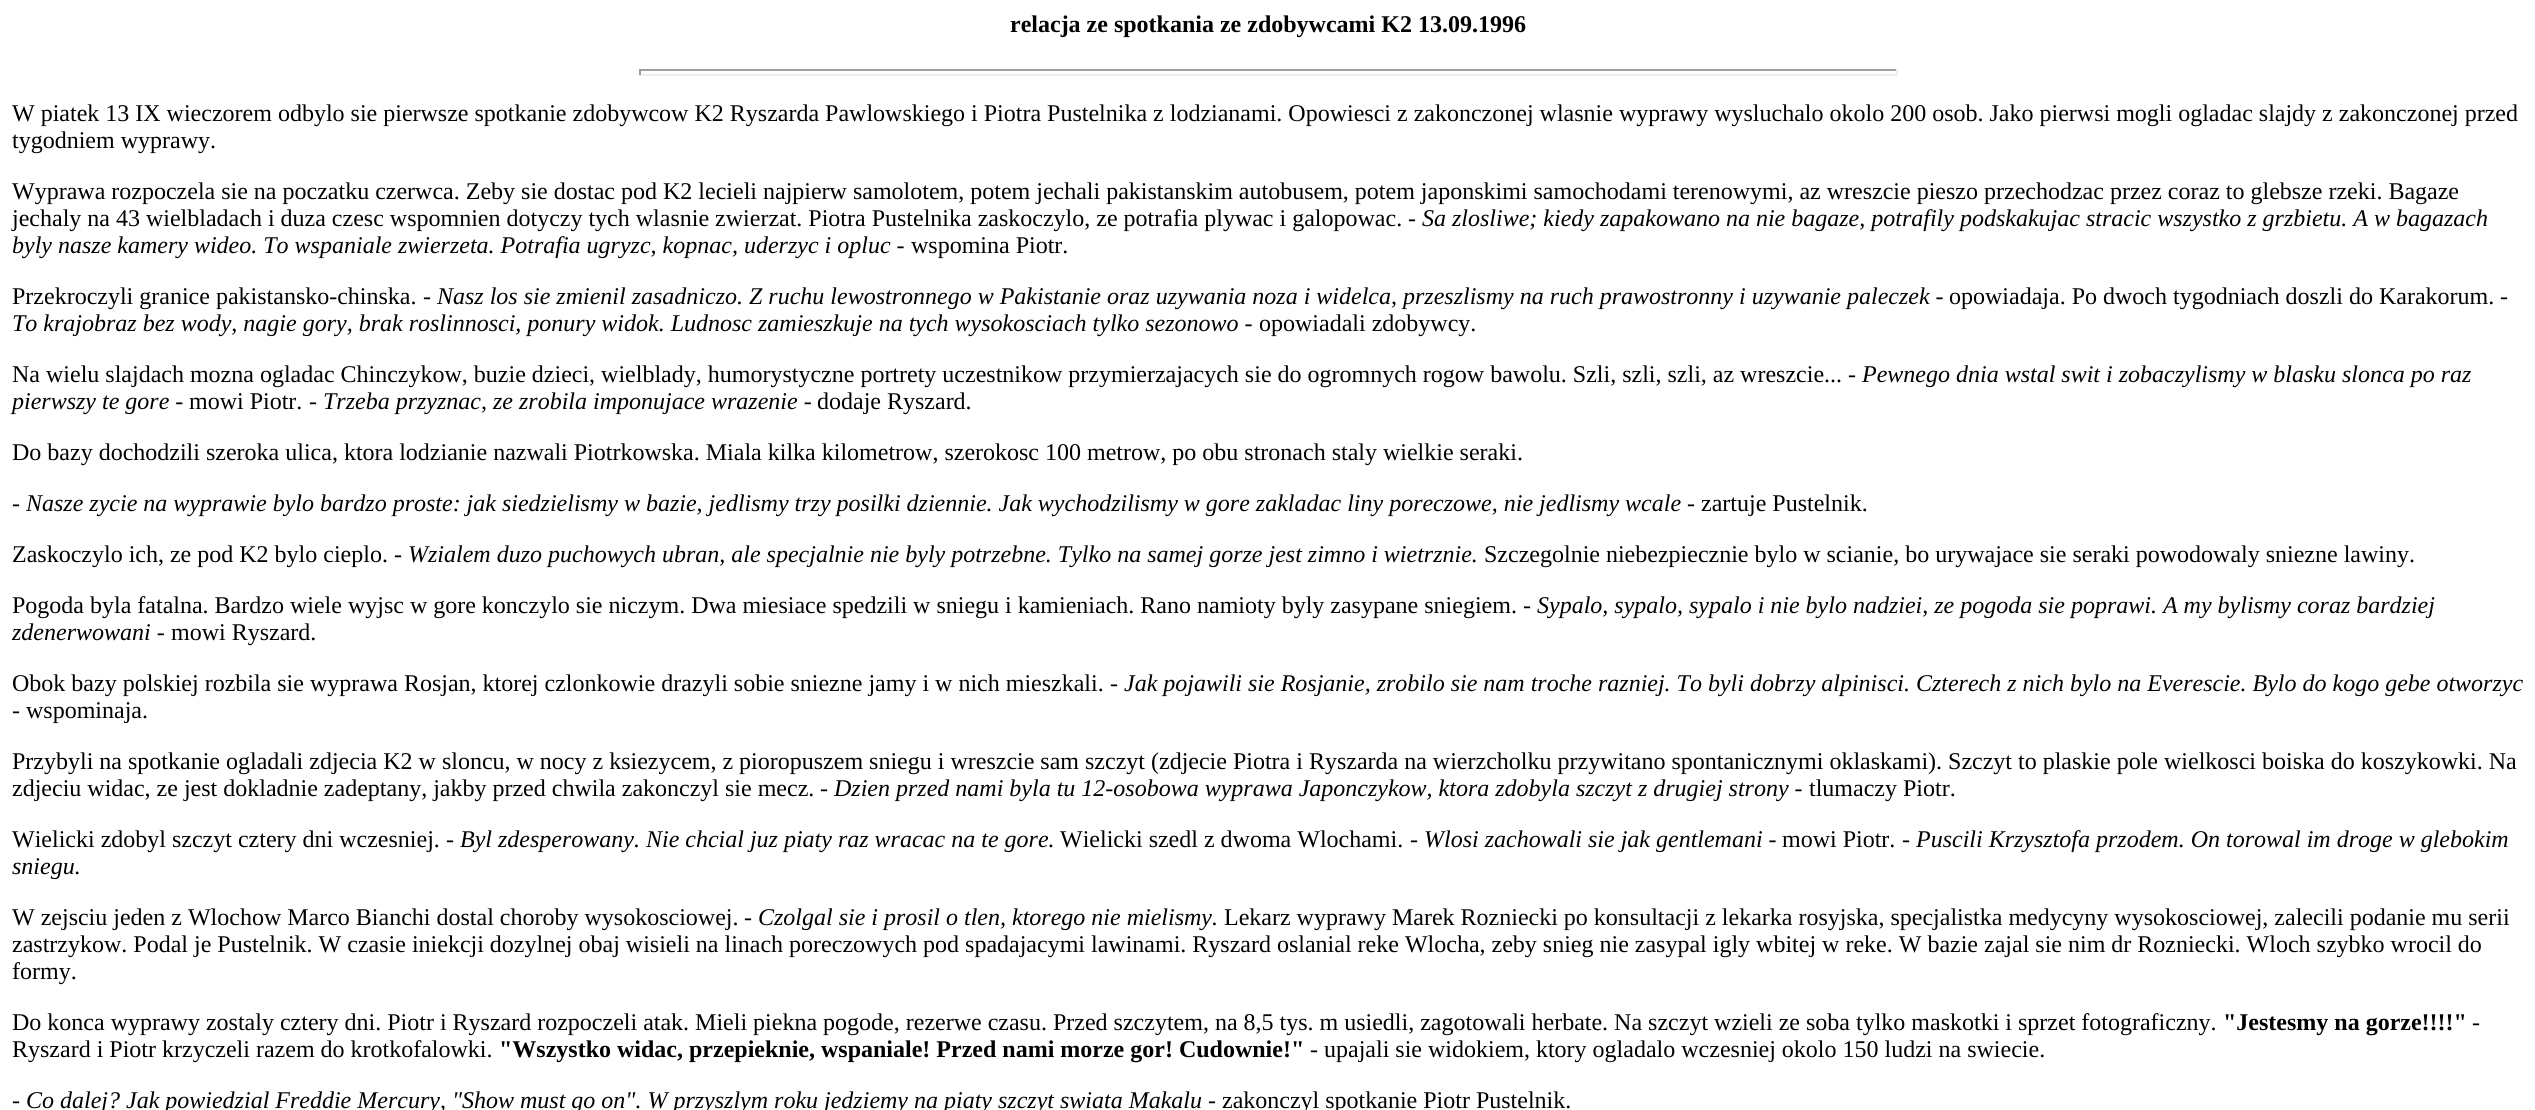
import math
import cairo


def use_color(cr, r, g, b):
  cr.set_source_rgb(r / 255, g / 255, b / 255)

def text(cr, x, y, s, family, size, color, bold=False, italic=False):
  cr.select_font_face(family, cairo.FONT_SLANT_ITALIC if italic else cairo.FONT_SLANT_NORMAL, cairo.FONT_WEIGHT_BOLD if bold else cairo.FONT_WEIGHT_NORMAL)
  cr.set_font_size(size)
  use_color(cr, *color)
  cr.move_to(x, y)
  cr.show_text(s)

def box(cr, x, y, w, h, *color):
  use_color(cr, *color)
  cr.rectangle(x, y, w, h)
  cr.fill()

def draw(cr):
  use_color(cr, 255, 255, 255)
  cr.paint()
  box(cr, 639, 69, 1259, 2, 159, 159, 159)
  box(cr, 1896, 69, 2, 6, 238, 238, 238)
  box(cr, 639, 74, 1259, 2, 238, 238, 238)
  box(cr, 639, 69, 2, 6, 159, 159, 159)
  text(cr, 1010, 32, "relacja ze spotkania ze zdobywcami K2 13.09.1996", "Liberation Serif", 24, (0, 0, 0), bold=True)
  text(cr, 12, 121, "W piatek 13 IX wieczorem odbylo sie pierwsze spotkanie zdobywcow K2 Ryszarda Pawlowskiego i Piotra Pustelnika z lodzianami. Opowiesci z zakonczonej wlasnie wyprawy wysluchalo okolo 200 osob. Jako pierwsi mogli ogladac slajdy z zakonczonej przed", "Liberation Serif", 24, (0, 0, 0))
  text(cr, 12, 148, "tygodniem wyprawy.", "Liberation Serif", 24, (0, 0, 0))
  text(cr, 12, 199, "Wyprawa rozpoczela sie na poczatku czerwca. Zeby sie dostac pod K2 lecieli najpierw samolotem, potem jechali pakistanskim autobusem, potem japonskimi samochodami terenowymi, az wreszcie pieszo przechodzac przez coraz to glebsze rzeki. Bagaze", "Liberation Serif", 24, (0, 0, 0))
  text(cr, 12, 226, "jechaly na 43 wielbladach i duza czesc wspomnien dotyczy tych wlasnie zwierzat. Piotra Pustelnika zaskoczylo, ze potrafia plywac i galopowac.", "Liberation Serif", 24, (0, 0, 0))
  text(cr, 1408, 226, "- Sa zlosliwe; kiedy zapakowano na nie bagaze, potrafily podskakujac stracic wszystko z grzbietu. A w bagazach", "Liberation Serif", 24, (0, 0, 0), italic=True)
  text(cr, 12, 253, "byly nasze kamery wideo. To wspaniale zwierzeta. Potrafia ugryzc, kopnac, uderzyc i opluc -", "Liberation Serif", 24, (0, 0, 0), italic=True)
  text(cr, 911, 253, "wspomina Piotr.", "Liberation Serif", 24, (0, 0, 0))
  text(cr, 12, 304, "Przekroczyli granice pakistansko-chinska.", "Liberation Serif", 24, (0, 0, 0))
  text(cr, 423, 304, "- Nasz los sie zmienil zasadniczo. Z ruchu lewostronnego w Pakistanie oraz uzywania noza i widelca, przeszlismy na ruch prawostronny i uzywanie paleczek -", "Liberation Serif", 24, (0, 0, 0), italic=True)
  text(cr, 1949, 304, "opowiadaja. Po dwoch tygodniach doszli do Karakorum.", "Liberation Serif", 24, (0, 0, 0))
  text(cr, 2500, 304, "-", "Liberation Serif", 24, (0, 0, 0), italic=True)
  text(cr, 12, 331, "To krajobraz bez wody, nagie gory, brak roslinnosci, ponury widok. Ludnosc zamieszkuje na tych wysokosciach tylko sezonowo -", "Liberation Serif", 24, (0, 0, 0), italic=True)
  text(cr, 1259, 331, "opowiadali zdobywcy.", "Liberation Serif", 24, (0, 0, 0))
  text(cr, 12, 382, "Na wielu slajdach mozna ogladac Chinczykow, buzie dzieci, wielblady, humorystyczne portrety uczestnikow przymierzajacych sie do ogromnych rogow bawolu. Szli, szli, szli, az wreszcie...", "Liberation Serif", 24, (0, 0, 0))
  text(cr, 1848, 382, "- Pewnego dnia wstal swit i zobaczylismy w blasku slonca po raz", "Liberation Serif", 24, (0, 0, 0), italic=True)
  text(cr, 12, 409, "pierwszy te gore -", "Liberation Serif", 24, (0, 0, 0), italic=True)
  text(cr, 189, 409, "mowi Piotr.", "Liberation Serif", 24, (0, 0, 0))
  text(cr, 309, 409, "- Trzeba przyznac, ze zrobila imponujace wrazenie -", "Liberation Serif", 24, (0, 0, 0), italic=True)
  text(cr, 817, 409, "dodaje Ryszard.", "Liberation Serif", 24, (0, 0, 0))
  text(cr, 12, 460, "Do bazy dochodzili szeroka ulica, ktora lodzianie nazwali Piotrkowska. Miala kilka kilometrow, szerokosc 100 metrow, po obu stronach staly wielkie seraki.", "Liberation Serif", 24, (0, 0, 0))
  text(cr, 12, 511, "- Nasze zycie na wyprawie bylo bardzo proste: jak siedzielismy w bazie, jedlismy trzy posilki dziennie. Jak wychodzilismy w gore zakladac liny poreczowe, nie jedlismy wcale -", "Liberation Serif", 24, (0, 0, 0), italic=True)
  text(cr, 1701, 511, "zartuje Pustelnik.", "Liberation Serif", 24, (0, 0, 0))
  text(cr, 12, 562, "Zaskoczylo ich, ze pod K2 bylo cieplo.", "Liberation Serif", 24, (0, 0, 0))
  text(cr, 394, 562, "- Wzialem duzo puchowych ubran, ale specjalnie nie byly potrzebne. Tylko na samej gorze jest zimno i wietrznie.", "Liberation Serif", 24, (0, 0, 0), italic=True)
  text(cr, 1484, 562, "Szczegolnie niebezpiecznie bylo w scianie, bo urywajace sie seraki powodowaly sniezne lawiny.", "Liberation Serif", 24, (0, 0, 0))
  text(cr, 12, 613, "Pogoda byla fatalna. Bardzo wiele wyjsc w gore konczylo sie niczym. Dwa miesiace spedzili w sniegu i kamieniach. Rano namioty byly zasypane sniegiem.", "Liberation Serif", 24, (0, 0, 0))
  text(cr, 1523, 613, "- Sypalo, sypalo, sypalo i nie bylo nadziei, ze pogoda sie poprawi. A my bylismy coraz bardziej", "Liberation Serif", 24, (0, 0, 0), italic=True)
  text(cr, 12, 640, "zdenerwowani -", "Liberation Serif", 24, (0, 0, 0), italic=True)
  text(cr, 171, 640, "mowi Ryszard.", "Liberation Serif", 24, (0, 0, 0))
  text(cr, 12, 691, "Obok bazy polskiej rozbila sie wyprawa Rosjan, ktorej czlonkowie drazyli sobie sniezne jamy i w nich mieszkali.", "Liberation Serif", 24, (0, 0, 0))
  text(cr, 1110, 691, "- Jak pojawili sie Rosjanie, zrobilo sie nam troche razniej. To byli dobrzy alpinisci. Czterech z nich bylo na Everescie. Bylo do kogo gebe otworzyc", "Liberation Serif", 24, (0, 0, 0), italic=True)
  text(cr, 12, 718, "-", "Liberation Serif", 24, (0, 0, 0), italic=True)
  text(cr, 26, 718, "wspominaja.", "Liberation Serif", 24, (0, 0, 0))
  text(cr, 12, 769, "Przybyli na spotkanie ogladali zdjecia K2 w sloncu, w nocy z ksiezycem, z pioropuszem sniegu i wreszcie sam szczyt (zdjecie Piotra i Ryszarda na wierzcholku przywitano spontanicznymi oklaskami). Szczyt to plaskie pole wielkosci boiska do koszykowki. Na", "Liberation Serif", 24, (0, 0, 0))
  text(cr, 12, 796, "zdjeciu widac, ze jest dokladnie zadeptany, jakby przed chwila zakonczyl sie mecz.", "Liberation Serif", 24, (0, 0, 0))
  text(cr, 820, 796, "- Dzien przed nami byla tu 12-osobowa wyprawa Japonczykow, ktora zdobyla szczyt z drugiej strony -", "Liberation Serif", 24, (0, 0, 0), italic=True)
  text(cr, 1809, 796, "tlumaczy Piotr.", "Liberation Serif", 24, (0, 0, 0))
  text(cr, 12, 847, "Wielicki zdobyl szczyt cztery dni wczesniej.", "Liberation Serif", 24, (0, 0, 0))
  text(cr, 446, 847, "- Byl zdesperowany. Nie chcial juz piaty raz wracac na te gore.", "Liberation Serif", 24, (0, 0, 0), italic=True)
  text(cr, 1060, 847, "Wielicki szedl z dwoma Wlochami.", "Liberation Serif", 24, (0, 0, 0))
  text(cr, 1410, 847, "- Wlosi zachowali sie jak gentlemani -", "Liberation Serif", 24, (0, 0, 0), italic=True)
  text(cr, 1782, 847, "mowi Piotr.", "Liberation Serif", 24, (0, 0, 0))
  text(cr, 1902, 847, "- Puscili Krzysztofa przodem. On torowal im droge w glebokim", "Liberation Serif", 24, (0, 0, 0), italic=True)
  text(cr, 12, 874, "sniegu.", "Liberation Serif", 24, (0, 0, 0), italic=True)
  text(cr, 12, 925, "W zejsciu jeden z Wlochow Marco Bianchi dostal choroby wysokosciowej.", "Liberation Serif", 24, (0, 0, 0))
  text(cr, 744, 925, "- Czolgal sie i prosil o tlen, ktorego nie mielismy.", "Liberation Serif", 24, (0, 0, 0), italic=True)
  text(cr, 1224, 925, "Lekarz wyprawy Marek Rozniecki po konsultacji z lekarka rosyjska, specjalistka medycyny wysokosciowej, zalecili podanie mu serii", "Liberation Serif", 24, (0, 0, 0))
  text(cr, 12, 952, "zastrzykow. Podal je Pustelnik. W czasie iniekcji dozylnej obaj wisieli na linach poreczowych pod spadajacymi lawinami. Ryszard oslanial reke Wlocha, zeby snieg nie zasypal igly wbitej w reke. W bazie zajal sie nim dr Rozniecki. Wloch szybko wrocil do", "Liberation Serif", 24, (0, 0, 0))
  text(cr, 12, 979, "formy.", "Liberation Serif", 24, (0, 0, 0))
  text(cr, 12, 1030, "Do konca wyprawy zostaly cztery dni. Piotr i Ryszard rozpoczeli atak. Mieli piekna pogode, rezerwe czasu. Przed szczytem, na 8,5 tys. m usiedli, zagotowali herbate. Na szczyt wzieli ze soba tylko maskotki i sprzet fotograficzny.", "Liberation Serif", 24, (0, 0, 0))
  text(cr, 2223, 1030, "\"Jestesmy na gorze!!!!\"", "Liberation Serif", 24, (0, 0, 0), bold=True)
  text(cr, 2472, 1030, "-", "Liberation Serif", 24, (0, 0, 0))
  text(cr, 12, 1057, "Ryszard i Piotr krzyczeli razem do krotkofalowki.", "Liberation Serif", 24, (0, 0, 0))
  text(cr, 499, 1057, "\"Wszystko widac, przepieknie, wspaniale! Przed nami morze gor! Cudownie!\"", "Liberation Serif", 24, (0, 0, 0), bold=True)
  text(cr, 1310, 1057, "- upajali sie widokiem, ktory ogladalo wczesniej okolo 150 ludzi na swiecie.", "Liberation Serif", 24, (0, 0, 0))
  text(cr, 12, 1108, "- Co dalej? Jak powiedzial Freddie Mercury, \"Show must go on\". W przyszlym roku jedziemy na piaty szczyt swiata Makalu -", "Liberation Serif", 24, (0, 0, 0), italic=True)
  text(cr, 1222, 1108, "zakonczyl spotkanie Piotr Pustelnik.", "Liberation Serif", 24, (0, 0, 0))


surface = cairo.ImageSurface(cairo.FORMAT_RGB24, 2535, 1110)
cr = cairo.Context(surface)
options = cairo.FontOptions()
options.set_hint_metrics(cairo.HINT_METRICS_OFF)
options.set_hint_style(cairo.HINT_STYLE_NONE)
cr.set_font_options(options)
cr.set_miter_limit(4)
draw(cr)
surface.write_to_png("out.png")
